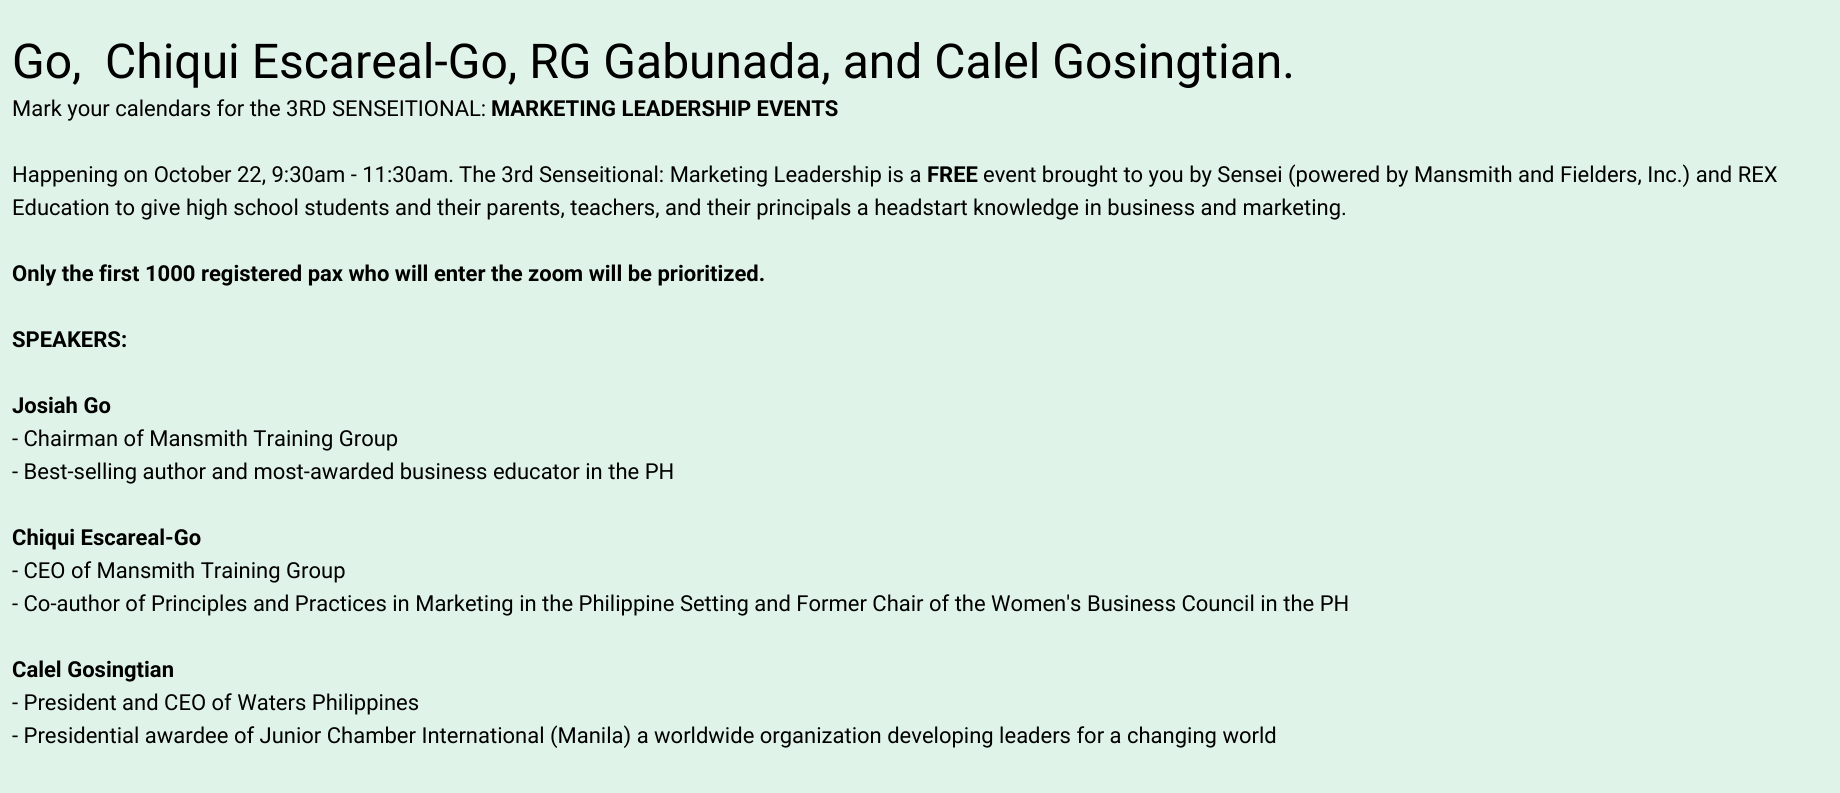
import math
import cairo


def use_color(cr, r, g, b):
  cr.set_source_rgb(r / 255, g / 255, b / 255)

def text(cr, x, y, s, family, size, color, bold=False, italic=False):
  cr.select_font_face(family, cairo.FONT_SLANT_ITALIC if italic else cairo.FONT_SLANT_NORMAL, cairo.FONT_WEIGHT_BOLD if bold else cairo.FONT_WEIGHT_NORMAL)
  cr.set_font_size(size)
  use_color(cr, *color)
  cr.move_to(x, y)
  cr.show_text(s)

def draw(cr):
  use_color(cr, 223, 243, 232)
  cr.paint()
  text(cr, 12, 78, "Go,", "Roboto", 48, (0, 0, 0))
  text(cr, 105, 78, "Chiqui Escareal-Go, RG Gabunada, and Calel Gosingtian.", "Roboto", 48, (0, 0, 0))
  text(cr, 12, 116, "Mark your calendars for the 3RD SENSEITIONAL:", "Roboto", 22, (0, 0, 0))
  text(cr, 491, 116, "MARKETING LEADERSHIP EVENTS", "Roboto", 22, (0, 0, 0), bold=True)
  text(cr, 12, 182, "Happening on October 22, 9:30am - 11:30am.", "Roboto", 22, (0, 0, 0))
  text(cr, 459, 182, "The 3rd Senseitional: Marketing Leadership is a", "Roboto", 22, (0, 0, 0))
  text(cr, 927, 182, "FREE", "Roboto", 22, (0, 0, 0), bold=True)
  text(cr, 983, 182, "event brought to you by Sensei (powered by Mansmith and Fielders, Inc.) and REX", "Roboto", 22, (0, 0, 0))
  text(cr, 12, 215, "Education to give high school students and their parents, teachers, and their principals a headstart knowledge in business and marketing.", "Roboto", 22, (0, 0, 0))
  text(cr, 12, 281, "Only the first 1000 registered pax who will enter the zoom will be prioritized.", "Roboto", 22, (0, 0, 0), bold=True)
  text(cr, 12, 347, "SPEAKERS:", "Roboto", 22, (0, 0, 0), bold=True)
  text(cr, 12, 413, "Josiah Go", "Roboto", 22, (0, 0, 0), bold=True)
  text(cr, 12, 446, "- Chairman of Mansmith Training Group", "Roboto", 22, (0, 0, 0))
  text(cr, 12, 479, "- Best-selling author and most-awarded business educator in the PH", "Roboto", 22, (0, 0, 0))
  text(cr, 12, 545, "Chiqui Escareal-Go", "Roboto", 22, (0, 0, 0), bold=True)
  text(cr, 12, 578, "- CEO of Mansmith Training Group", "Roboto", 22, (0, 0, 0))
  text(cr, 12, 611, "- Co-author of Principles and Practices in Marketing in the Philippine Setting and Former Chair of the Women's Business Council in the PH", "Roboto", 22, (0, 0, 0))
  text(cr, 12, 677, "Calel Gosingtian", "Roboto", 22, (0, 0, 0), bold=True)
  text(cr, 12, 710, "- President and CEO of Waters Philippines", "Roboto", 22, (0, 0, 0))
  text(cr, 12, 743, "- Presidential awardee of Junior Chamber International (Manila) a worldwide organization developing leaders for a changing world", "Roboto", 22, (0, 0, 0))


surface = cairo.ImageSurface(cairo.FORMAT_RGB24, 1840, 793)
cr = cairo.Context(surface)
options = cairo.FontOptions()
options.set_hint_metrics(cairo.HINT_METRICS_OFF)
options.set_hint_style(cairo.HINT_STYLE_NONE)
cr.set_font_options(options)
cr.set_miter_limit(4)
draw(cr)
surface.write_to_png("out.png")
